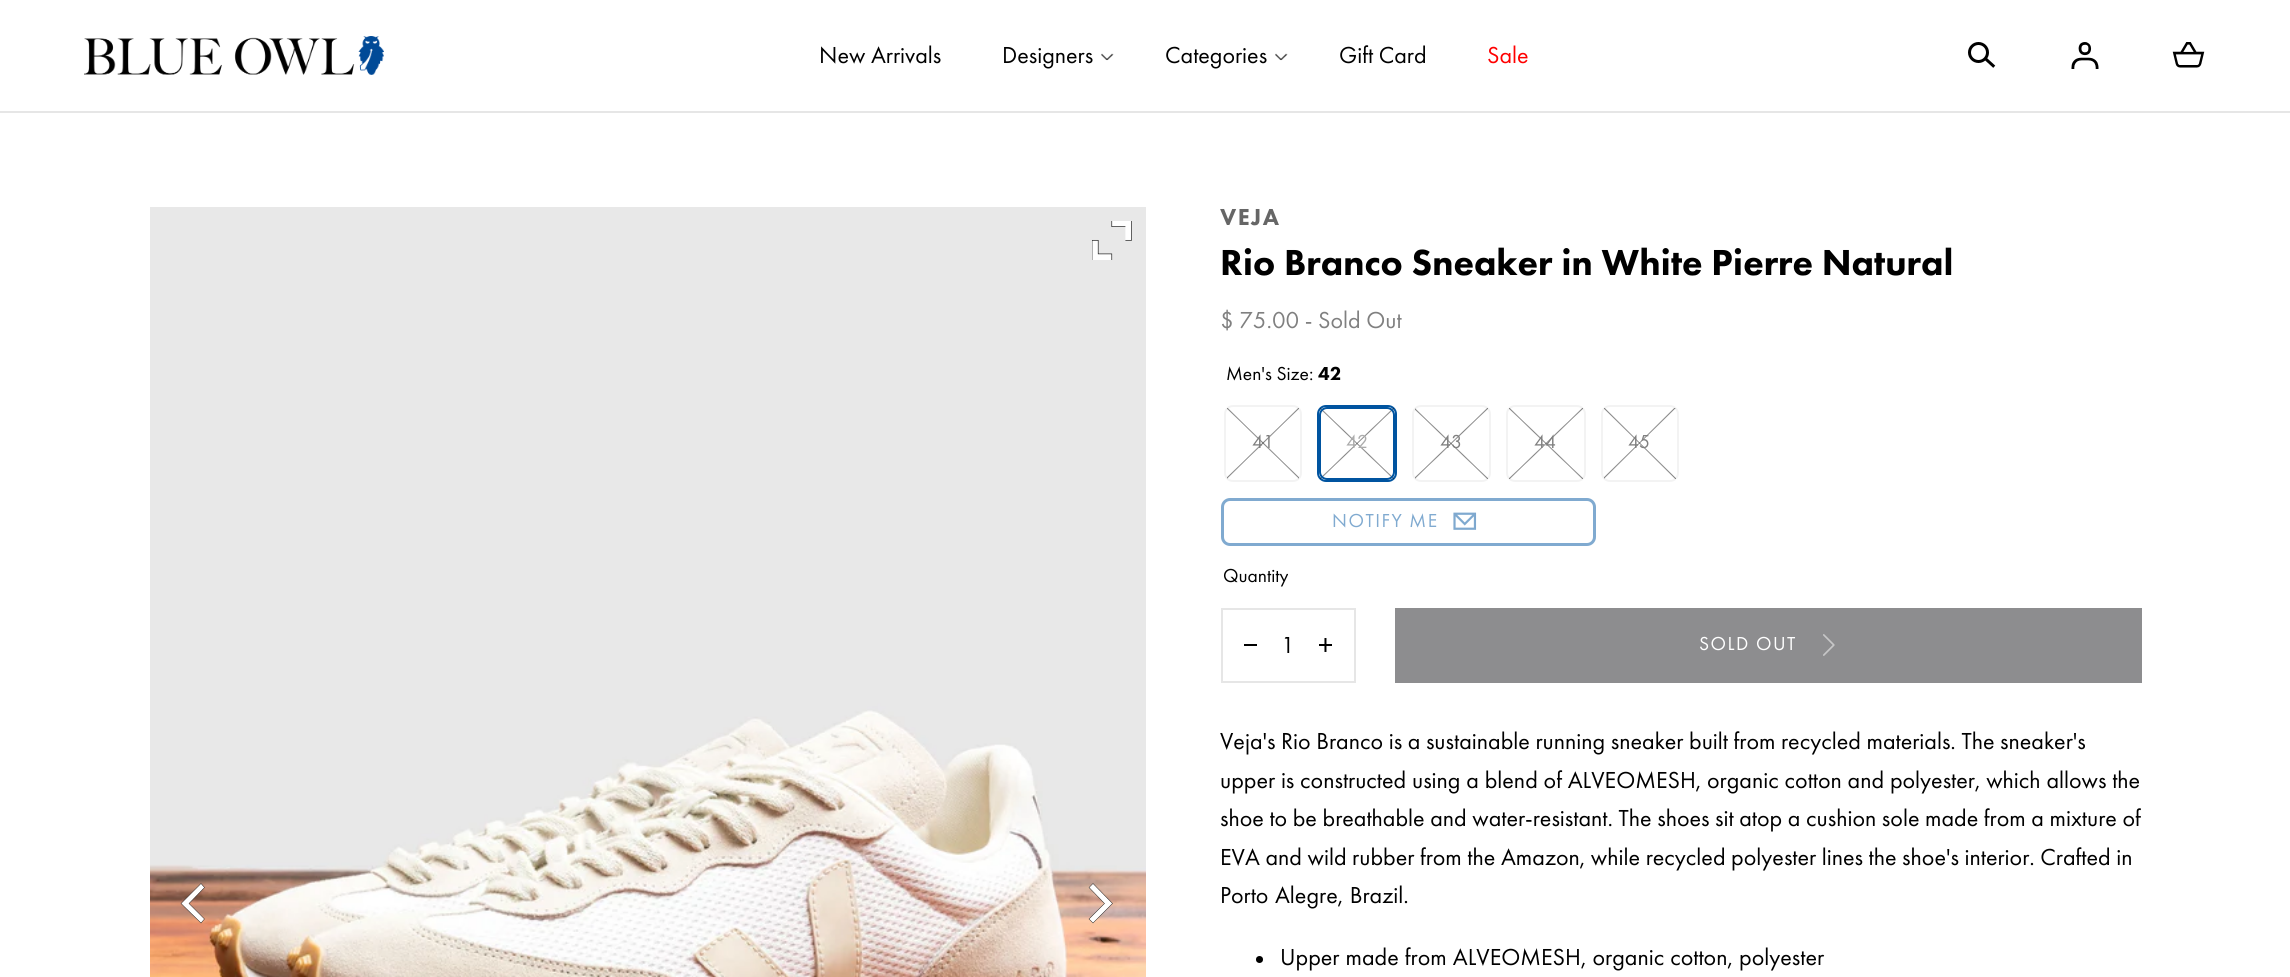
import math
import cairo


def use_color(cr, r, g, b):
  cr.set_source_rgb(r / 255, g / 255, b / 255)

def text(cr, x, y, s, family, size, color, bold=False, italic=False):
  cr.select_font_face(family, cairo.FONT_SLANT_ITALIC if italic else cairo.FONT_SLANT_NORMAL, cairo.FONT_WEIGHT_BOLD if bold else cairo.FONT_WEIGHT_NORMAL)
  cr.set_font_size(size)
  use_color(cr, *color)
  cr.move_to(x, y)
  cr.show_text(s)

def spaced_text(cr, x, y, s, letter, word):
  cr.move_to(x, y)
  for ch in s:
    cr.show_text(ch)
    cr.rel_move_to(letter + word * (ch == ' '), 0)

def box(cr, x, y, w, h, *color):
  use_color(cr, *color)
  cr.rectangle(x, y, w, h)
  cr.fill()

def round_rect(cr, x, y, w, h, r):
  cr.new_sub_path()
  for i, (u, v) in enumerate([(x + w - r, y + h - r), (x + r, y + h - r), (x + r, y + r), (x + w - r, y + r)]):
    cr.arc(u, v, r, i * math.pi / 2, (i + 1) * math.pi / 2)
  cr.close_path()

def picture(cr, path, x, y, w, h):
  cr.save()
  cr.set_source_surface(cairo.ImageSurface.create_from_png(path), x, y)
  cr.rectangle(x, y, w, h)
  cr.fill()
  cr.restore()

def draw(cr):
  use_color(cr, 255, 255, 255)
  cr.paint()
  box(cr, 0, 111, 2290, 2, 230, 230, 230)
  picture(cr, "img_01.png", 84, 36, 300, 39)
  picture(cr, "img_02.png", 1101, 53, 13, 8)
  picture(cr, "img_02.png", 1275, 53, 13, 8)
  picture(cr, "img_03.png", 1968, 42, 28, 26)
  picture(cr, "img_04.png", 2071, 42, 28, 27)
  picture(cr, "img_05.png", 2172, 42, 33, 26)
  picture(cr, "img_06.png", 150, 207, 996, 770)
  picture(cr, "img_07.png", 1092, 221, 40, 39)
  use_color(cr, 255, 255, 255)
  cr.new_path()
  cr.move_to(181, 903.5)
  cr.line_to(201, 923)
  cr.line_to(204.5, 919)
  cr.line_to(189, 903.5)
  cr.line_to(204.5, 887.5)
  cr.line_to(201, 883.5)
  cr.close_path()
  cr.fill_preserve()
  use_color(cr, 0, 0, 0)
  cr.set_line_width(0.4)
  cr.stroke()
  use_color(cr, 255, 255, 255)
  cr.new_path()
  cr.move_to(1112.5, 903.5)
  cr.line_to(1093, 883.5)
  cr.line_to(1089, 887.5)
  cr.line_to(1104.5, 903.5)
  cr.line_to(1089, 919)
  cr.line_to(1093, 923)
  cr.close_path()
  cr.fill_preserve()
  use_color(cr, 0, 0, 0)
  cr.stroke()
  round_rect(cr, 1225, 406, 76, 75, 8)
  use_color(cr, 243, 243, 243)
  cr.set_line_width(2)
  cr.stroke()
  gradient = cairo.LinearGradient(1228, 479, 1298, 407)
  gradient.add_color_stop_rgba(0, 0.071, 0.071, 0.071, 0)
  gradient.add_color_stop_rgba(0.49, 0.071, 0.071, 0.071, 0)
  gradient.add_color_stop_rgba(0.5, 0.071, 0.071, 0.071, 0.5)
  gradient.add_color_stop_rgba(0.51, 0.071, 0.071, 0.071, 0)
  gradient.add_color_stop_rgba(1, 0.071, 0.071, 0.071, 0)
  cr.set_source(gradient)
  cr.rectangle(1227, 408, 72, 71)
  cr.fill()
  gradient = cairo.LinearGradient(1298, 479, 1228, 407)
  gradient.add_color_stop_rgba(0, 0.071, 0.071, 0.071, 0)
  gradient.add_color_stop_rgba(0.49, 0.071, 0.071, 0.071, 0)
  gradient.add_color_stop_rgba(0.5, 0.071, 0.071, 0.071, 0.5)
  gradient.add_color_stop_rgba(0.51, 0.071, 0.071, 0.071, 0)
  gradient.add_color_stop_rgba(1, 0.071, 0.071, 0.071, 0)
  cr.set_source(gradient)
  cr.rectangle(1227, 408, 72, 71)
  cr.fill()
  round_rect(cr, 1318, 406, 78, 75, 8)
  use_color(cr, 0, 84, 160)
  cr.stroke()
  gradient = cairo.LinearGradient(1322, 480, 1392, 407)
  gradient.add_color_stop_rgba(0, 0.071, 0.071, 0.071, 0)
  gradient.add_color_stop_rgba(0.49, 0.071, 0.071, 0.071, 0)
  gradient.add_color_stop_rgba(0.5, 0.071, 0.071, 0.071, 0.5)
  gradient.add_color_stop_rgba(0.51, 0.071, 0.071, 0.071, 0)
  gradient.add_color_stop_rgba(1, 0.071, 0.071, 0.071, 0)
  cr.set_source(gradient)
  cr.rectangle(1320, 408, 74, 71)
  cr.fill()
  gradient = cairo.LinearGradient(1392, 480, 1322, 407)
  gradient.add_color_stop_rgba(0, 0.071, 0.071, 0.071, 0)
  gradient.add_color_stop_rgba(0.49, 0.071, 0.071, 0.071, 0)
  gradient.add_color_stop_rgba(0.5, 0.071, 0.071, 0.071, 0.5)
  gradient.add_color_stop_rgba(0.51, 0.071, 0.071, 0.071, 0)
  gradient.add_color_stop_rgba(1, 0.071, 0.071, 0.071, 0)
  cr.set_source(gradient)
  cr.rectangle(1320, 408, 74, 71)
  cr.fill()
  round_rect(cr, 1320, 408, 74, 71, 7)
  use_color(cr, 0, 84, 160)
  cr.stroke()
  round_rect(cr, 1413, 406, 77, 75, 8)
  use_color(cr, 243, 243, 243)
  cr.stroke()
  gradient = cairo.LinearGradient(1416, 480, 1486, 407)
  gradient.add_color_stop_rgba(0, 0.071, 0.071, 0.071, 0)
  gradient.add_color_stop_rgba(0.49, 0.071, 0.071, 0.071, 0)
  gradient.add_color_stop_rgba(0.5, 0.071, 0.071, 0.071, 0.5)
  gradient.add_color_stop_rgba(0.51, 0.071, 0.071, 0.071, 0)
  gradient.add_color_stop_rgba(1, 0.071, 0.071, 0.071, 0)
  cr.set_source(gradient)
  cr.rectangle(1415, 408, 73, 71)
  cr.fill()
  gradient = cairo.LinearGradient(1486, 480, 1416, 407)
  gradient.add_color_stop_rgba(0, 0.071, 0.071, 0.071, 0)
  gradient.add_color_stop_rgba(0.49, 0.071, 0.071, 0.071, 0)
  gradient.add_color_stop_rgba(0.5, 0.071, 0.071, 0.071, 0.5)
  gradient.add_color_stop_rgba(0.51, 0.071, 0.071, 0.071, 0)
  gradient.add_color_stop_rgba(1, 0.071, 0.071, 0.071, 0)
  cr.set_source(gradient)
  cr.rectangle(1415, 408, 73, 71)
  cr.fill()
  round_rect(cr, 1507, 406, 78, 75, 8)
  use_color(cr, 243, 243, 243)
  cr.stroke()
  gradient = cairo.LinearGradient(1511, 480, 1581, 407)
  gradient.add_color_stop_rgba(0, 0.071, 0.071, 0.071, 0)
  gradient.add_color_stop_rgba(0.49, 0.071, 0.071, 0.071, 0)
  gradient.add_color_stop_rgba(0.5, 0.071, 0.071, 0.071, 0.5)
  gradient.add_color_stop_rgba(0.51, 0.071, 0.071, 0.071, 0)
  gradient.add_color_stop_rgba(1, 0.071, 0.071, 0.071, 0)
  cr.set_source(gradient)
  cr.rectangle(1509, 408, 74, 71)
  cr.fill()
  gradient = cairo.LinearGradient(1581, 480, 1511, 407)
  gradient.add_color_stop_rgba(0, 0.071, 0.071, 0.071, 0)
  gradient.add_color_stop_rgba(0.49, 0.071, 0.071, 0.071, 0)
  gradient.add_color_stop_rgba(0.5, 0.071, 0.071, 0.071, 0.5)
  gradient.add_color_stop_rgba(0.51, 0.071, 0.071, 0.071, 0)
  gradient.add_color_stop_rgba(1, 0.071, 0.071, 0.071, 0)
  cr.set_source(gradient)
  cr.rectangle(1509, 408, 74, 71)
  cr.fill()
  round_rect(cr, 1602, 406, 76, 75, 8)
  use_color(cr, 243, 243, 243)
  cr.stroke()
  gradient = cairo.LinearGradient(1604, 479, 1675, 407)
  gradient.add_color_stop_rgba(0, 0.071, 0.071, 0.071, 0)
  gradient.add_color_stop_rgba(0.49, 0.071, 0.071, 0.071, 0)
  gradient.add_color_stop_rgba(0.5, 0.071, 0.071, 0.071, 0.5)
  gradient.add_color_stop_rgba(0.51, 0.071, 0.071, 0.071, 0)
  gradient.add_color_stop_rgba(1, 0.071, 0.071, 0.071, 0)
  cr.set_source(gradient)
  cr.rectangle(1604, 408, 72, 71)
  cr.fill()
  gradient = cairo.LinearGradient(1675, 479, 1604, 407)
  gradient.add_color_stop_rgba(0, 0.071, 0.071, 0.071, 0)
  gradient.add_color_stop_rgba(0.49, 0.071, 0.071, 0.071, 0)
  gradient.add_color_stop_rgba(0.5, 0.071, 0.071, 0.071, 0.5)
  gradient.add_color_stop_rgba(0.51, 0.071, 0.071, 0.071, 0)
  gradient.add_color_stop_rgba(1, 0.071, 0.071, 0.071, 0)
  cr.set_source(gradient)
  cr.rectangle(1604, 408, 72, 71)
  cr.fill()
  round_rect(cr, 1222.5, 499.5, 372, 45, 7.5)
  use_color(cr, 128, 170, 208)
  cr.set_line_width(3)
  cr.stroke()
  picture(cr, "img_08.png", 1453, 512, 24, 18)
  cr.rectangle(1222, 609, 133, 73)
  use_color(cr, 230, 230, 230)
  cr.set_line_width(2)
  cr.stroke()
  box(cr, 1244, 644, 13, 2, 0, 0, 0)
  picture(cr, "img_09.png", 1319, 638, 13, 14)
  box(cr, 1395, 608, 747, 75, 141, 141, 143)
  picture(cr, "img_10.png", 1823, 634, 12, 22)
  use_color(cr, 0, 0, 0)
  cr.arc(1259.5, 959.5, 3.5, 0, 2 * math.pi)
  cr.fill()
  text(cr, 819, 63, "New Arrivals", "Futura PT", 24, (0, 0, 0))
  text(cr, 1002, 63, "Designers", "Futura PT", 24, (0, 0, 0))
  text(cr, 1165, 63, "Categories", "Futura PT", 24, (0, 0, 0))
  text(cr, 1339, 63, "Gift Card", "Futura PT", 24, (0, 0, 0))
  text(cr, 1487, 63, "Sale", "Futura PT", 24, (255, 0, 0))
  cr.select_font_face("Futura PT Black")
  use_color(cr, 102, 102, 102)
  spaced_text(cr, 1220, 225, "VEJA", 1.5, 0)
  text(cr, 1220, 275, "Rio Branco Sneaker in White Pierre Natural", "Futura PT Black", 37.5, (0, 0, 0))
  text(cr, 1220, 328, "$ 75.00 - Sold Out", "Futura PT", 24, (128, 128, 128))
  text(cr, 1226, 380, "Men's Size:", "Futura PT", 19.5, (0, 0, 0))
  text(cr, 1318, 380, "42", "Futura PT Black", 19.5, (0, 0, 0))
  text(cr, 1252, 448, "41", "Futura PT", 19.5, (128, 128, 128))
  text(cr, 1346, 448, "42", "Futura PT", 19.5, (172, 172, 172))
  text(cr, 1440, 448, "43", "Futura PT", 19.5, (128, 128, 128))
  text(cr, 1534, 448, "44", "Futura PT", 19.5, (128, 128, 128))
  text(cr, 1628, 448, "45", "Futura PT", 19.5, (128, 128, 128))
  use_color(cr, 128, 170, 208)
  spaced_text(cr, 1332, 527, "NOTIFY ME", 1.5, 0)
  text(cr, 1223, 582, "Quantity", "Futura PT", 19.5, (0, 0, 0))
  text(cr, 1281, 653, "1", "Futura PT", 24, (0, 0, 0))
  cr.set_font_size(19.5)
  use_color(cr, 255, 255, 255)
  spaced_text(cr, 1699, 650, "SOLD OUT", 1.5, 0)
  text(cr, 1220, 749, "Veja's Rio Branco is a sustainable running sneaker built from recycled materials. The sneaker's", "Futura PT", 24, (0, 0, 0))
  spaced_text(cr, 1220, 788, "upper is constructed using a blend of ALVEOMESH, organic cotton and polyester, which allows the", 0, 0.2)
  text(cr, 1220, 826, "shoe to be breathable and water-resistant. The shoes sit atop a cushion sole made from a mixture of", "Futura PT", 24, (0, 0, 0))
  text(cr, 1220, 865, "EVA and wild rubber from the Amazon, while recycled polyester lines the shoe's interior. Crafted in", "Futura PT", 24, (0, 0, 0))
  spaced_text(cr, 1220, 903, "Porto Alegre, Brazil.", 0, 1)
  spaced_text(cr, 1280, 965, "Upper made from ALVEOMESH, organic cotton, polyester", 0, 0.5)


surface = cairo.ImageSurface(cairo.FORMAT_RGB24, 2290, 977)
cr = cairo.Context(surface)
options = cairo.FontOptions()
options.set_hint_metrics(cairo.HINT_METRICS_OFF)
options.set_hint_style(cairo.HINT_STYLE_NONE)
cr.set_font_options(options)
cr.set_miter_limit(4)
draw(cr)
surface.write_to_png("out.png")
